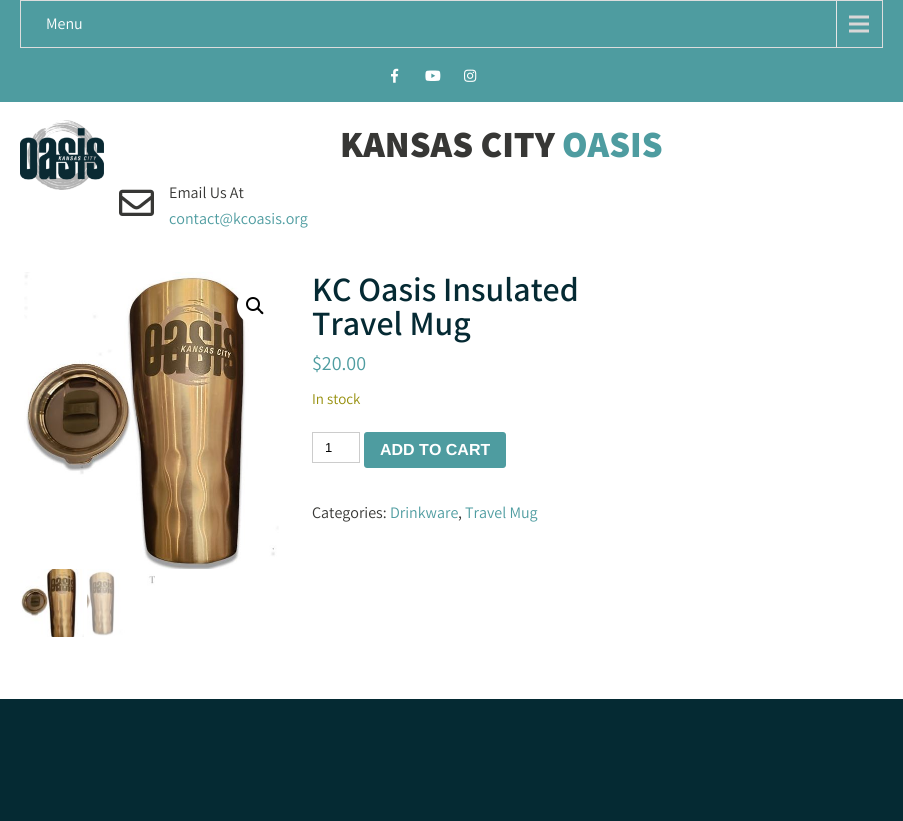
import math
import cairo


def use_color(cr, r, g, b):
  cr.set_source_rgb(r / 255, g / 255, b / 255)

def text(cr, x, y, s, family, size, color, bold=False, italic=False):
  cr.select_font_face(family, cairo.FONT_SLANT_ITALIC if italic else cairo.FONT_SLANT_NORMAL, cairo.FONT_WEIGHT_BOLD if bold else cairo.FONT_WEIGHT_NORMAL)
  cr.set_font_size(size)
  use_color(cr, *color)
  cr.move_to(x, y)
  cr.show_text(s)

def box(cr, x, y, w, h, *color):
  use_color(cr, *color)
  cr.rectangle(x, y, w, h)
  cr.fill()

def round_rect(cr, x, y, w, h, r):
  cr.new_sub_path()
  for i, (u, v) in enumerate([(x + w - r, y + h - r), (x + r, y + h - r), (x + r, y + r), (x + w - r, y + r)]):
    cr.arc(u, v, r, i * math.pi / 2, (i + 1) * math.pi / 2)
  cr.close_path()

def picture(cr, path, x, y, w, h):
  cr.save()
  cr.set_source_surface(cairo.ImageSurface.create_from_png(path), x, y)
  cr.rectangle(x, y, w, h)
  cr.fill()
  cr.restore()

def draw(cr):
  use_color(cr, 255, 255, 255)
  cr.paint()
  box(cr, 0, 0, 903, 102, 78, 156, 160)
  picture(cr, "img_01.png", 836, 1, 33, 46)
  cr.rectangle(20.5, 0.5, 862, 47)
  use_color(cr, 221, 221, 221)
  cr.set_line_width(1)
  cr.stroke()
  picture(cr, "img_02.png", 391, 68, 8, 15)
  picture(cr, "img_03.png", 425, 70, 16, 11)
  picture(cr, "img_04.png", 464, 69, 13, 13)
  picture(cr, "img_05.png", 20, 120, 84, 70)
  picture(cr, "img_06.png", 119, 189, 35, 27)
  picture(cr, "img_07.png", 24, 272, 255, 297)
  use_color(cr, 255, 255, 255)
  cr.arc(255, 306, 18, 0, 2 * math.pi)
  cr.fill()
  cr.arc(253, 304, 6, 0, 2 * math.pi)
  use_color(cr, 0, 0, 0)
  cr.set_line_width(2)
  cr.stroke()
  cr.new_path()
  cr.move_to(257.5, 308)
  cr.curve_to(258.5, 307, 260.5, 309.5, 261, 310.5)
  cr.curve_to(261.5, 311, 264.5, 312.5, 263, 314)
  cr.curve_to(262, 315, 260, 312.5, 259.5, 311.5)
  cr.curve_to(259, 311, 256, 309.5, 257.5, 308)
  cr.close_path()
  cr.fill()
  picture(cr, "img_08.png", 20, 569, 64, 68)
  picture(cr, "img_09.png", 87, 569, 68, 67)
  cr.rectangle(312.5, 432.5, 47, 30)
  use_color(cr, 204, 204, 204)
  cr.set_line_width(1)
  cr.stroke()
  use_color(cr, 78, 156, 160)
  round_rect(cr, 364, 432, 142, 36, 3)
  cr.fill()
  box(cr, 0, 699, 903, 122, 5, 42, 51)
  text(cr, 46, 29, "Menu", "Assistant ExtraLight", 16, (255, 255, 255))
  text(cr, 340, 157, "KANSAS CITY", "Assistant ExtraBold", 37, (55, 55, 53))
  text(cr, 562, 157, "OASIS", "Assistant ExtraBold", 37, (78, 156, 160))
  text(cr, 169, 198, "Email Us At", "Assistant ExtraLight", 16, (55, 55, 53))
  text(cr, 169, 224, "contact@kcoasis.org", "Assistant ExtraLight", 16, (78, 156, 160))
  text(cr, 312, 301, "KC Oasis Insulated", "Assistant SemiBold", 34, (5, 42, 51))
  text(cr, 312, 335, "Travel Mug", "Assistant SemiBold", 34, (5, 42, 51))
  text(cr, 312, 370, "$20.00", "Assistant ExtraLight", 20, (78, 156, 160))
  text(cr, 312, 404, "In stock", "Assistant ExtraLight", 15, (149, 142, 9))
  text(cr, 325, 452, "1", "Liberation Sans", 13, (0, 0, 0))
  text(cr, 380, 455, "ADD TO CART", "Liberation Sans", 16, (255, 255, 255), bold=True)
  text(cr, 312, 518, "Categories:", "Assistant ExtraLight", 16, (55, 55, 53))
  text(cr, 390, 518, "Drinkware", "Assistant ExtraLight", 16, (78, 156, 160))
  text(cr, 458, 518, ",", "Assistant ExtraLight", 16, (55, 55, 53))
  text(cr, 465, 518, "Travel Mug", "Assistant ExtraLight", 16, (78, 156, 160))


surface = cairo.ImageSurface(cairo.FORMAT_RGB24, 903, 821)
cr = cairo.Context(surface)
options = cairo.FontOptions()
options.set_hint_metrics(cairo.HINT_METRICS_OFF)
options.set_hint_style(cairo.HINT_STYLE_NONE)
cr.set_font_options(options)
cr.set_miter_limit(4)
draw(cr)
surface.write_to_png("out.png")
